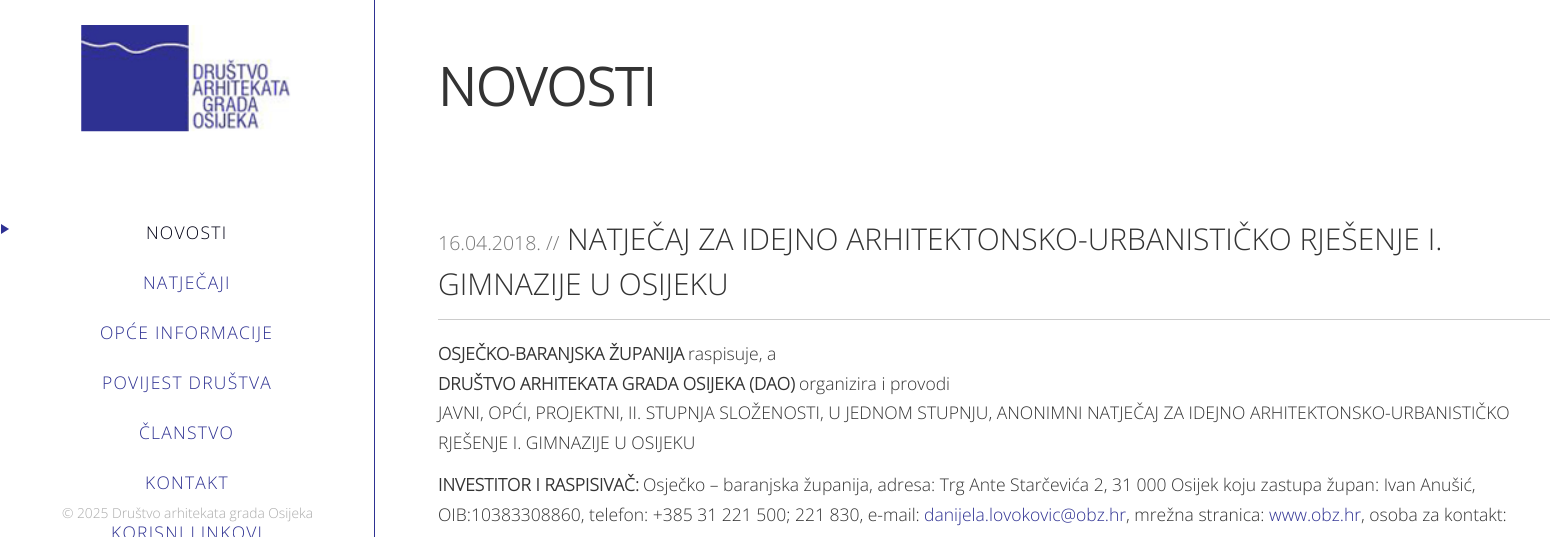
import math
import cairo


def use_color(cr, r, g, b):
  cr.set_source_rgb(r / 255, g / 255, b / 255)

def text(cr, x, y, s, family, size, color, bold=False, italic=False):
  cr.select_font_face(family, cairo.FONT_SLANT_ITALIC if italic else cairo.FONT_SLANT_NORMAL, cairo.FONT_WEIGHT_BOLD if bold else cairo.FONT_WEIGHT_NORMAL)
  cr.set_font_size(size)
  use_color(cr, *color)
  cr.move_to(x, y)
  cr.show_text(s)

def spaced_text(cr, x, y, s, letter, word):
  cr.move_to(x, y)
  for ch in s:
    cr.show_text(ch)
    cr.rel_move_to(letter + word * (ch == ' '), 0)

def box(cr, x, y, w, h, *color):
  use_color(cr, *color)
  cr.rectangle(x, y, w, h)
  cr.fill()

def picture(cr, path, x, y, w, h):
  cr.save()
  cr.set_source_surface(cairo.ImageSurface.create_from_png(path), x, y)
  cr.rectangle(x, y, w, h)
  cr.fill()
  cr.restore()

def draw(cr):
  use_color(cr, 255, 255, 255)
  cr.paint()
  box(cr, 374, 0, 1, 537, 46, 49, 146)
  picture(cr, "img_01.png", 81, 25, 210, 107)
  use_color(cr, 46, 49, 147)
  cr.new_path()
  cr.move_to(1, 234)
  cr.line_to(1, 224)
  cr.line_to(9, 229)
  cr.close_path()
  cr.fill()
  box(cr, 438, 319, 1112, 1, 204, 204, 204)
  cr.select_font_face("Open Sans Light")
  cr.set_font_size(17.5)
  use_color(cr, 0, 0, 20)
  spaced_text(cr, 146, 239, "NOVOSTI", 1.25, 0)
  use_color(cr, 46, 49, 146)
  spaced_text(cr, 143, 289, "NATJEČAJI", 1.25, 0)
  spaced_text(cr, 100, 339, "OPĆE INFORMACIJE", 1.25, 0)
  spaced_text(cr, 102, 389, "POVIJEST DRUŠTVA", 1.25, 0)
  spaced_text(cr, 139, 439, "ČLANSTVO", 1.25, 0)
  spaced_text(cr, 145, 489, "KONTAKT", 1.25, 0)
  spaced_text(cr, 111, 539, "KORISNI LINKOVI", 1.25, 0)
  text(cr, 62, 518, "© 2025 Društvo arhitekata grada Osijeka", "Open Sans Light", 13.75, (170, 170, 170))
  text(cr, 438, 106, "NOVOSTI", "Open Sans", 52.5, (51, 51, 51), bold=True)
  text(cr, 438, 250, "16.04.2018. //", "Open Sans Light", 19.5, (119, 119, 119))
  text(cr, 567, 250, "NATJEČAJ ZA IDEJNO ARHITEKTONSKO-URBANISTIČKO RJEŠENJE I.", "Open Sans Light", 30, (51, 51, 51))
  text(cr, 438, 295, "GIMNAZIJE U OSIJEKU", "Open Sans Light", 30, (51, 51, 51))
  text(cr, 438, 360, "OSJEČKO-BARANJSKA ŽUPANIJA", "Open Sans", 17.5, (51, 51, 51), bold=True)
  text(cr, 688, 360, "raspisuje, a", "Open Sans Light", 17.5, (51, 51, 51))
  text(cr, 438, 390, "DRUŠTVO ARHITEKATA GRADA OSIJEKA (DAO)", "Open Sans", 17.5, (51, 51, 51), bold=True)
  text(cr, 799, 390, "organizira i provodi", "Open Sans Light", 17.5, (51, 51, 51))
  text(cr, 438, 419, "JAVNI, OPĆI, PROJEKTNI, II. STUPNJA SLOŽENOSTI, U JEDNOM STUPNJU, ANONIMNI NATJEČAJ ZA IDEJNO ARHITEKTONSKO-URBANISTIČKO", "Open Sans Light", 17.5, (51, 51, 51))
  text(cr, 438, 449, "RJEŠENJE I. GIMNAZIJE U OSIJEKU", "Open Sans Light", 17.5, (51, 51, 51))
  text(cr, 438, 491, "INVESTITOR I RASPISIVAČ:", "Open Sans", 17.5, (51, 51, 51), bold=True)
  text(cr, 643, 491, "Osječko – baranjska županija, adresa: Trg Ante Starčevića 2, 31 000 Osijek koju zastupa župan: Ivan Anušić,", "Open Sans Light", 17.5, (51, 51, 51))
  text(cr, 438, 521, "OIB:10383308860, telefon: +385 31 221 500; 221 830, e-mail:", "Open Sans Light", 17.5, (51, 51, 51))
  text(cr, 924, 521, "danijela.lovokovic@obz.hr", "Open Sans Light", 17.5, (46, 49, 146))
  text(cr, 1126, 521, ", mrežna stranica:", "Open Sans Light", 17.5, (51, 51, 51))
  text(cr, 1269, 521, "www.obz.hr", "Open Sans Light", 17.5, (46, 49, 146))
  text(cr, 1361, 521, ", osoba za kontakt:", "Open Sans Light", 17.5, (51, 51, 51))


surface = cairo.ImageSurface(cairo.FORMAT_RGB24, 1562, 537)
cr = cairo.Context(surface)
options = cairo.FontOptions()
options.set_hint_metrics(cairo.HINT_METRICS_OFF)
options.set_hint_style(cairo.HINT_STYLE_NONE)
cr.set_font_options(options)
cr.set_miter_limit(4)
draw(cr)
surface.write_to_png("out.png")
